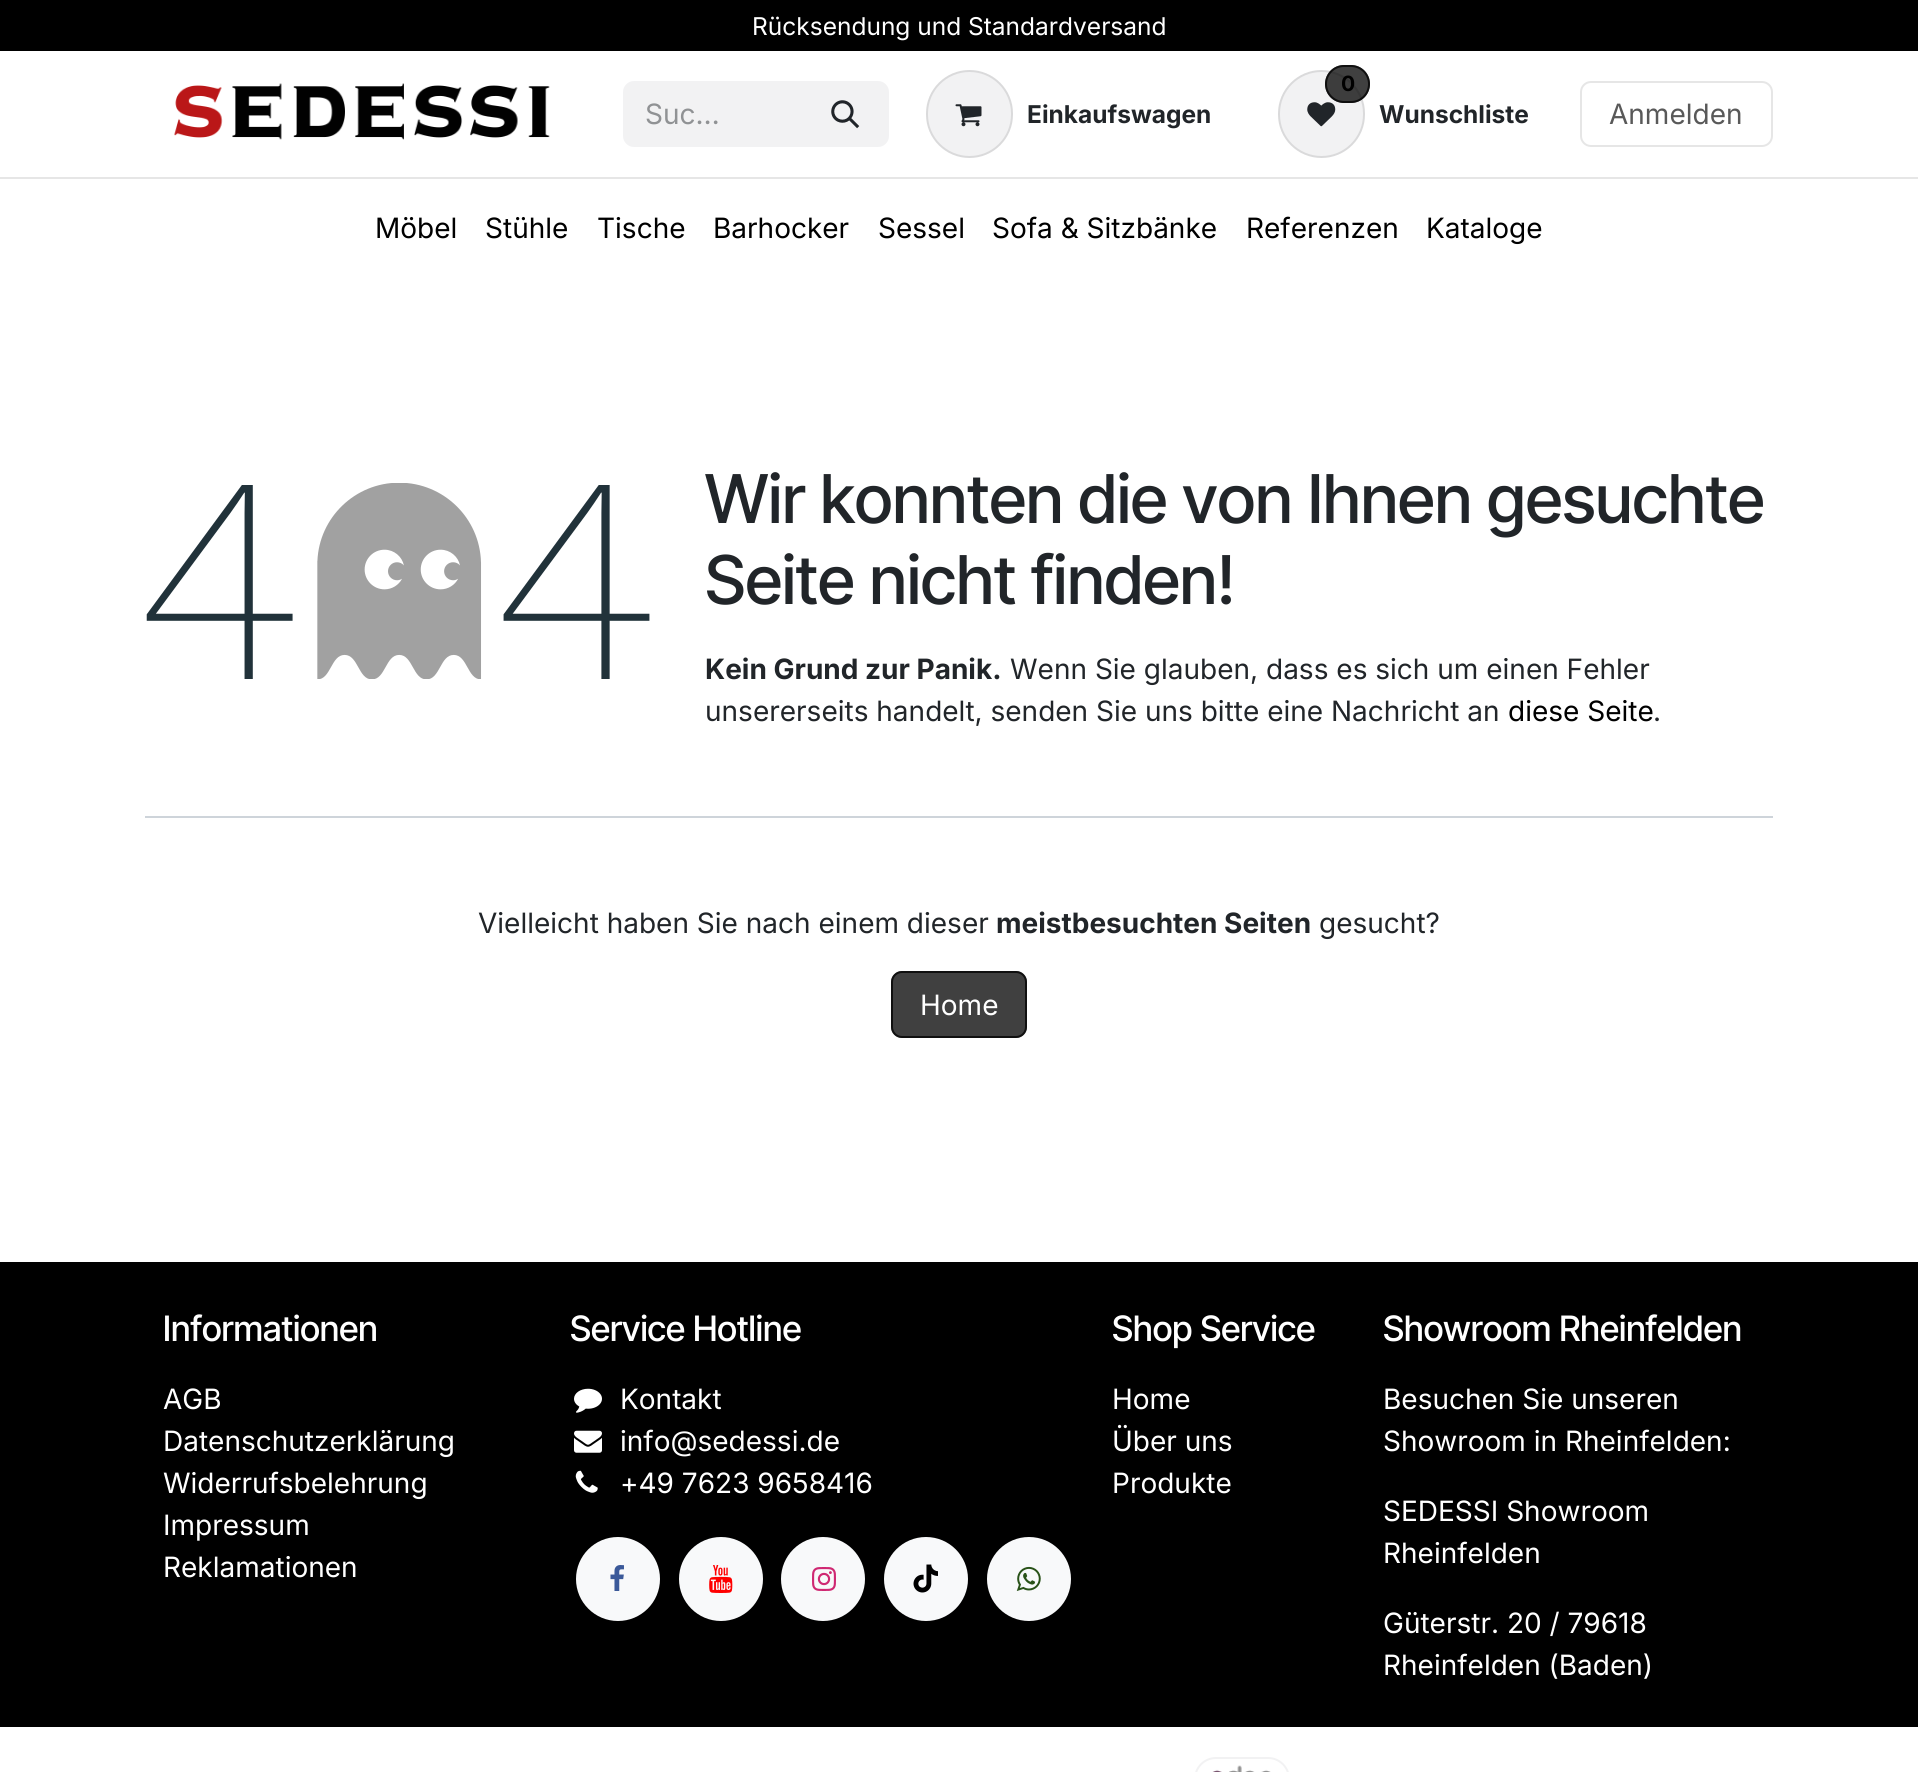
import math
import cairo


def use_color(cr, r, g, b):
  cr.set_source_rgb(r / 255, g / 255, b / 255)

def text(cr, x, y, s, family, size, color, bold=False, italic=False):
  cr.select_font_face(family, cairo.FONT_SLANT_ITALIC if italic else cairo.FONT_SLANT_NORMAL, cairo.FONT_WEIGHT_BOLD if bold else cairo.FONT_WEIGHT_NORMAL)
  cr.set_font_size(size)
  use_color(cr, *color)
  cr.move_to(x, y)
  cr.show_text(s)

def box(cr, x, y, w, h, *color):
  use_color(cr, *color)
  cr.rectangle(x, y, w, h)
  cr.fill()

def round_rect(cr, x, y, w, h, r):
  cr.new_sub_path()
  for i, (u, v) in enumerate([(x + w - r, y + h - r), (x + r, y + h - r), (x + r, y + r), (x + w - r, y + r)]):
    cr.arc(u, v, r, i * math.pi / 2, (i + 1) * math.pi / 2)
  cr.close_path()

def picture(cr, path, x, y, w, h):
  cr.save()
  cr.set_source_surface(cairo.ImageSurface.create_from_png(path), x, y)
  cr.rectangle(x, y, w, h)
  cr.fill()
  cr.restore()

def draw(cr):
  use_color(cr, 255, 255, 255)
  cr.paint()
  box(cr, 0, 0, 1918, 51, 0, 0, 0)
  picture(cr, "img_01.png", 174, 83, 376, 57)
  use_color(cr, 242, 242, 243)
  cr.new_path()
  cr.move_to(634, 81)
  cr.line_to(803, 81)
  cr.line_to(803, 147)
  cr.line_to(634, 147)
  cr.curve_to(628, 147, 623, 142, 623, 136)
  cr.line_to(623, 92)
  cr.curve_to(623, 86, 628, 81, 634, 81)
  cr.close_path()
  cr.fill()
  cr.new_path()
  cr.move_to(803, 82)
  cr.line_to(878, 82)
  cr.curve_to(883.5, 82, 888, 86.5, 888, 92)
  cr.line_to(888, 136)
  cr.curve_to(888, 141.5, 883.5, 146, 878, 146)
  cr.line_to(803, 146)
  cr.close_path()
  cr.fill_preserve()
  cr.stroke()
  picture(cr, "img_02.png", 831, 100, 29, 29)
  round_rect(cr, 926, 70, 87, 88, 43.5)
  cr.fill()
  round_rect(cr, 927, 71, 85, 86, 42.5)
  cr.set_source_rgba(0, 0, 0, 0.1)
  cr.stroke()
  picture(cr, "img_03.png", 955, 104, 27, 23)
  use_color(cr, 242, 242, 243)
  round_rect(cr, 1278, 70, 87, 88, 43.5)
  cr.fill()
  round_rect(cr, 1279, 71, 85, 86, 42.5)
  cr.set_source_rgba(0, 0, 0, 0.1)
  cr.stroke()
  picture(cr, "img_04.png", 1307, 102, 29, 25)
  cr.set_source_rgba(0, 0, 0, 0.75)
  round_rect(cr, 1325, 65, 45, 38, 19)
  cr.fill()
  round_rect(cr, 1326, 66, 43, 36, 18)
  cr.stroke()
  round_rect(cr, 1581, 82, 191, 64, 10)
  use_color(cr, 230, 230, 230)
  cr.stroke()
  box(cr, 0, 177, 1918, 2, 230, 230, 230)
  picture(cr, "img_05.png", 146, 483, 504, 196)
  box(cr, 145, 816, 1628, 2, 206, 212, 218)
  use_color(cr, 64, 64, 64)
  round_rect(cr, 891, 971, 136, 67, 11)
  cr.fill()
  round_rect(cr, 892, 972, 134, 65, 10)
  cr.set_source_rgba(0, 0, 0, 0.75)
  cr.stroke()
  box(cr, 0, 1262, 1918, 465, 0, 0, 0)
  picture(cr, "img_06.png", 574, 1388, 28, 25)
  picture(cr, "img_07.png", 574, 1430, 28, 23)
  picture(cr, "img_08.png", 575, 1470, 23, 23)
  use_color(cr, 248, 249, 250)
  cr.arc(618, 1579, 42, 0, 2 * math.pi)
  cr.fill()
  picture(cr, "img_09.png", 610, 1565, 14, 26)
  cr.arc(721, 1579, 42, 0, 2 * math.pi)
  cr.fill()
  picture(cr, "img_10.png", 709, 1565, 24, 28)
  cr.arc(823, 1579, 42, 0, 2 * math.pi)
  cr.fill()
  picture(cr, "img_11.png", 812, 1567, 24, 24)
  cr.arc(926, 1579, 42, 0, 2 * math.pi)
  cr.fill()
  picture(cr, "img_12.png", 913, 1564, 25, 29)
  cr.arc(1029, 1579, 42, 0, 2 * math.pi)
  cr.fill()
  picture(cr, "img_13.png", 1016, 1566, 25, 25)
  round_rect(cr, 1195, 1758, 94, 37, 21)
  use_color(cr, 242, 242, 243)
  cr.stroke()
  picture(cr, "img_14.png", 1212, 1765, 59, 7)
  text(cr, 752, 35, "Rücksendung und Standardversand", "Inter", 24.5, (255, 255, 255))
  text(cr, 645, 124, "Suc…", "Inter", 28, (144, 146, 148))
  text(cr, 1027, 123, "Einkaufswagen", "Inter", 24.5, (33, 37, 41), bold=True)
  text(cr, 1341, 91, "0", "Inter", 21, (0, 0, 0), bold=True)
  text(cr, 1379, 123, "Wunschliste", "Inter", 24.5, (33, 37, 41), bold=True)
  text(cr, 1609, 124, "Anmelden", "Inter", 28, (89, 89, 89))
  text(cr, 375, 238, "Möbel", "Inter", 28, (0, 0, 0))
  text(cr, 485, 238, "Stühle", "Inter", 28, (0, 0, 0))
  text(cr, 597, 238, "Tische", "Inter", 28, (0, 0, 0))
  text(cr, 713, 238, "Barhocker", "Inter", 28, (0, 0, 0))
  text(cr, 878, 238, "Sessel", "Inter", 28, (0, 0, 0))
  text(cr, 992, 238, "Sofa & Sitzbänke", "Inter", 28, (0, 0, 0))
  text(cr, 1246, 238, "Referenzen", "Inter", 28, (0, 0, 0))
  text(cr, 1426, 238, "Kataloge", "Inter", 28, (0, 0, 0))
  text(cr, 705, 523, "Wir konnten die von Ihnen gesuchte", "Inter Tight Medium", 67.25, (33, 37, 41))
  text(cr, 705, 604, "Seite nicht finden!", "Inter Tight Medium", 67.25, (33, 37, 41))
  text(cr, 705, 679, "Kein Grund zur Panik.", "Inter", 28, (33, 37, 41), bold=True)
  text(cr, 1010, 679, "Wenn Sie glauben, dass es sich um einen Fehler", "Inter", 28, (33, 37, 41))
  text(cr, 705, 721, "unsererseits handelt, senden Sie uns bitte eine Nachricht an", "Inter", 28, (33, 37, 41))
  text(cr, 1508, 721, "diese Seite", "Inter", 28, (0, 0, 0))
  text(cr, 1653, 721, ".", "Inter", 28, (33, 37, 41))
  text(cr, 478, 933, "Vielleicht haben Sie nach einem dieser", "Inter", 28, (33, 37, 41))
  text(cr, 996, 933, "meistbesuchten Seiten", "Inter", 28, (33, 37, 41), bold=True)
  text(cr, 1319, 933, "gesucht?", "Inter", 28, (33, 37, 41))
  text(cr, 920, 1015, "Home", "Inter", 28, (255, 255, 255))
  text(cr, 163, 1341, "Informationen", "Inter Tight Medium", 35, (255, 255, 255))
  text(cr, 163, 1409, "AGB", "Inter", 28, (255, 255, 255))
  text(cr, 163, 1451, "Datenschutzerklärung", "Inter", 28, (255, 255, 255))
  text(cr, 163, 1493, "Widerrufsbelehrung", "Inter", 28, (255, 255, 255))
  text(cr, 163, 1535, "Impressum", "Inter", 28, (255, 255, 255))
  text(cr, 163, 1577, "Reklamationen", "Inter", 28, (255, 255, 255))
  text(cr, 570, 1341, "Service Hotline", "Inter Tight Medium", 35, (255, 255, 255))
  text(cr, 620, 1409, "Kontakt", "Inter", 28, (255, 255, 255))
  text(cr, 620, 1451, "info@sedessi.de", "Inter", 28, (255, 255, 255))
  text(cr, 620, 1493, "+49 7623 9658416", "Inter", 28, (255, 255, 255))
  text(cr, 1112, 1341, "Shop Service", "Inter Tight Medium", 35, (255, 255, 255))
  text(cr, 1112, 1409, "Home", "Inter", 28, (255, 255, 255))
  text(cr, 1112, 1451, "Über uns", "Inter", 28, (255, 255, 255))
  text(cr, 1112, 1493, "Produkte", "Inter", 28, (255, 255, 255))
  text(cr, 1383, 1341, "Showroom Rheinfelden", "Inter Tight Medium", 35, (255, 255, 255))
  text(cr, 1383, 1409, "Besuchen Sie unseren", "Inter", 28, (255, 255, 255))
  text(cr, 1383, 1451, "Showroom in Rheinfelden:", "Inter", 28, (255, 255, 255))
  text(cr, 1383, 1521, "SEDESSI Showroom", "Inter", 28, (255, 255, 255))
  text(cr, 1383, 1563, "Rheinfelden", "Inter", 28, (255, 255, 255))
  text(cr, 1383, 1633, "Güterstr. 20 / 79618", "Inter", 28, (255, 255, 255))
  text(cr, 1383, 1675, "Rheinfelden (Baden)", "Inter", 28, (255, 255, 255))


surface = cairo.ImageSurface(cairo.FORMAT_RGB24, 1918, 1772)
cr = cairo.Context(surface)
options = cairo.FontOptions()
options.set_hint_metrics(cairo.HINT_METRICS_OFF)
options.set_hint_style(cairo.HINT_STYLE_NONE)
cr.set_font_options(options)
cr.set_miter_limit(4)
draw(cr)
surface.write_to_png("out.png")
